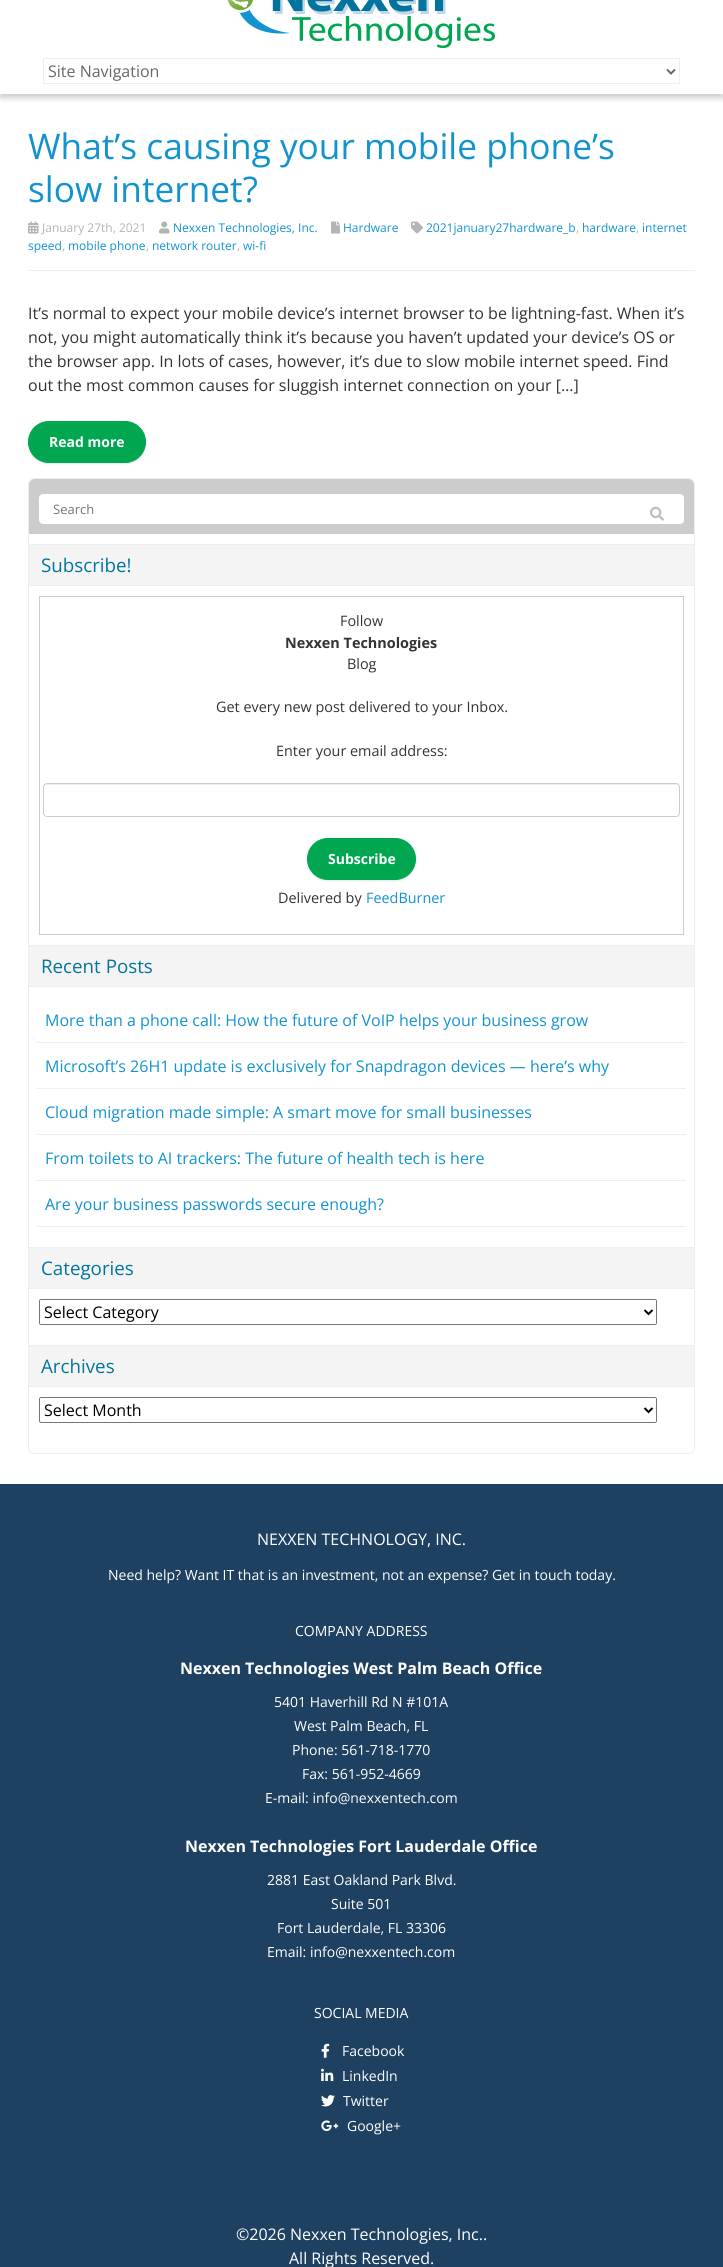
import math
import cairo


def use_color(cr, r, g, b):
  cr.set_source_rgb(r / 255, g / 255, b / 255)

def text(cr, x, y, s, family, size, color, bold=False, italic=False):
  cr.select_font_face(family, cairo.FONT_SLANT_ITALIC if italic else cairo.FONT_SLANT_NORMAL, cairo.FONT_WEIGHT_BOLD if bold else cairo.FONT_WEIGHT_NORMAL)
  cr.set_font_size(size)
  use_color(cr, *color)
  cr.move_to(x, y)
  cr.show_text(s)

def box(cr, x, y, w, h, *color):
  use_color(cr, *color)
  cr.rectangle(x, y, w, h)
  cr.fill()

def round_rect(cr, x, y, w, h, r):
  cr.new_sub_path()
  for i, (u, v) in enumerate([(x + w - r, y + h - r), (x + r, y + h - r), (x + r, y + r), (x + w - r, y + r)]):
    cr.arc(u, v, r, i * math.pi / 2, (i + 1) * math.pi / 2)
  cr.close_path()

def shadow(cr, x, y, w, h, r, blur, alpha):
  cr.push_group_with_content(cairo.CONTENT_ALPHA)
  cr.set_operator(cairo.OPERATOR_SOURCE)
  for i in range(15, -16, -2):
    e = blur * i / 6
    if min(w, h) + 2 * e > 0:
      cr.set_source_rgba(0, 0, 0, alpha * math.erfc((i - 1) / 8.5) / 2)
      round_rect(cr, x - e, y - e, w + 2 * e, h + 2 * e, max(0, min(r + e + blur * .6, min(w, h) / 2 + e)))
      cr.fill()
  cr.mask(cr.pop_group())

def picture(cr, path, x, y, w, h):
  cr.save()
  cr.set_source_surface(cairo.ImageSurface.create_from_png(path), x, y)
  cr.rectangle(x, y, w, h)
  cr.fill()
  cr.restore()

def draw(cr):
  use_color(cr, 255, 255, 255)
  cr.paint()
  cr.save()
  cr.rectangle(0, 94, 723, 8)
  cr.clip()
  use_color(cr, 0, 0, 0)
  shadow(cr, 0, -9, 723, 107, 0, 3, 0.2)
  cr.restore()
  picture(cr, "img_01.png", 227, 0, 268, 48)
  cr.rectangle(43.5, 58.5, 636, 25)
  use_color(cr, 238, 238, 238)
  cr.set_line_width(1)
  cr.stroke()
  cr.new_path()
  cr.move_to(667, 69.5)
  cr.line_to(671, 73.5)
  cr.line_to(675, 69.5)
  use_color(cr, 103, 103, 103)
  cr.set_line_width(2)
  cr.stroke()
  box(cr, 28, 270, 667, 1, 238, 238, 238)
  picture(cr, "img_02.png", 411, 221, 12, 13)
  picture(cr, "img_03.png", 28, 221, 11, 13)
  picture(cr, "img_04.png", 159, 221, 11, 13)
  picture(cr, "img_05.png", 331, 221, 9, 13)
  use_color(cr, 0, 0, 0)
  shadow(cr, 28, 422, 118, 42, 21, 1, 0.1)
  use_color(cr, 0, 167, 80)
  round_rect(cr, 28.5, 421.5, 117, 41, 20.5)
  cr.fill_preserve()
  cr.set_line_width(1)
  cr.stroke()
  round_rect(cr, 28.5, 478.5, 666, 975, 5.5)
  use_color(cr, 238, 238, 238)
  cr.stroke()
  use_color(cr, 204, 204, 204)
  cr.new_path()
  cr.move_to(35, 479)
  cr.line_to(688, 479)
  cr.curve_to(691.5, 479, 694, 481.5, 694, 485)
  cr.line_to(694, 534)
  cr.line_to(29, 534)
  cr.line_to(29, 485)
  cr.curve_to(29, 481.5, 31.5, 479, 35, 479)
  cr.close_path()
  cr.fill()
  use_color(cr, 255, 255, 255)
  round_rect(cr, 39, 494, 645, 30, 4)
  cr.fill()
  picture(cr, "img_06.png", 650, 506, 14, 15)
  box(cr, 29, 545, 665, 40, 244, 244, 244)
  box(cr, 29, 544, 665, 1, 238, 238, 238)
  box(cr, 29, 585, 665, 1, 238, 238, 238)
  cr.rectangle(39.5, 596.5, 644, 338)
  use_color(cr, 204, 204, 204)
  cr.stroke()
  use_color(cr, 236, 236, 236)
  cr.new_path()
  cr.move_to(47, 785)
  cr.line_to(676, 785)
  cr.curve_to(678, 785, 679, 786, 679, 788)
  cr.line_to(679, 787)
  cr.curve_to(679, 785, 678, 784, 676, 784)
  cr.line_to(47, 784)
  cr.curve_to(45, 784, 44, 785, 44, 787)
  cr.line_to(44, 788)
  cr.curve_to(44, 786, 45, 785, 47, 785)
  cr.close_path()
  cr.fill()
  round_rect(cr, 43.5, 783.5, 636, 33, 3.5)
  use_color(cr, 204, 204, 204)
  cr.stroke()
  use_color(cr, 0, 0, 0)
  shadow(cr, 307, 839, 109, 42, 21, 1, 0.1)
  use_color(cr, 0, 167, 80)
  round_rect(cr, 307.5, 838.5, 108, 41, 20.5)
  cr.fill_preserve()
  cr.stroke()
  box(cr, 29, 946, 665, 40, 244, 244, 244)
  box(cr, 29, 945, 665, 1, 238, 238, 238)
  box(cr, 29, 986, 665, 1, 238, 238, 238)
  box(cr, 37, 1042, 649, 1, 238, 238, 238)
  box(cr, 37, 1088, 649, 1, 238, 238, 238)
  box(cr, 37, 1134, 649, 1, 238, 238, 238)
  box(cr, 37, 1180, 649, 1, 238, 238, 238)
  box(cr, 37, 1226, 649, 1, 238, 238, 238)
  box(cr, 29, 1248, 665, 40, 244, 244, 244)
  box(cr, 29, 1247, 665, 1, 238, 238, 238)
  box(cr, 29, 1288, 665, 1, 238, 238, 238)
  round_rect(cr, 39.5, 1299.5, 617, 25, 1.5)
  use_color(cr, 118, 118, 118)
  cr.stroke()
  cr.new_path()
  cr.move_to(644.5, 1310)
  cr.line_to(648.5, 1314)
  cr.line_to(652.5, 1310)
  use_color(cr, 0, 0, 0)
  cr.set_line_width(2)
  cr.stroke()
  box(cr, 29, 1346, 665, 40, 244, 244, 244)
  box(cr, 29, 1345, 665, 1, 238, 238, 238)
  box(cr, 29, 1386, 665, 1, 238, 238, 238)
  round_rect(cr, 39.5, 1397.5, 617, 25, 1.5)
  use_color(cr, 118, 118, 118)
  cr.set_line_width(1)
  cr.stroke()
  cr.new_path()
  cr.move_to(644.5, 1408)
  cr.line_to(648.5, 1412)
  cr.line_to(652.5, 1408)
  use_color(cr, 0, 0, 0)
  cr.set_line_width(2)
  cr.stroke()
  box(cr, 0, 1484, 723, 783, 30, 65, 97)
  picture(cr, "img_07.png", 321, 2043, 9, 15)
  picture(cr, "img_08.png", 321, 2068, 13, 13)
  picture(cr, "img_09.png", 321, 2095, 14, 12)
  picture(cr, "img_10.png", 321, 2120, 18, 11)
  text(cr, 48, 77, "Site Navigation", "Open Sans", 16, (103, 103, 103))
  text(cr, 28, 159, "What’s causing your mobile phone’s", "Open Sans", 35.25, (18, 147, 208))
  text(cr, 28, 202, "slow internet?", "Open Sans", 35.25, (18, 147, 208))
  text(cr, 426, 232, "2021january27hardware_b", "Open Sans", 12, (18, 147, 208))
  text(cr, 576, 232, ",", "Open Sans", 12, (180, 180, 180))
  text(cr, 582, 232, "hardware", "Open Sans", 12, (18, 147, 208))
  text(cr, 636, 232, ",", "Open Sans", 12, (180, 180, 180))
  text(cr, 642, 232, "internet", "Open Sans", 12, (18, 147, 208))
  text(cr, 28, 250, "speed", "Open Sans", 12, (18, 147, 208))
  text(cr, 62, 250, ",", "Open Sans", 12, (180, 180, 180))
  text(cr, 68, 250, "mobile phone", "Open Sans", 12, (18, 147, 208))
  text(cr, 146, 250, ",", "Open Sans", 12, (180, 180, 180))
  text(cr, 152, 250, "network router", "Open Sans", 12, (18, 147, 208))
  text(cr, 237, 250, ",", "Open Sans", 12, (180, 180, 180))
  text(cr, 243, 250, "wi-fi", "Open Sans", 12, (18, 147, 208))
  text(cr, 42, 232, "January 27th, 2021", "Open Sans", 12, (180, 180, 180))
  text(cr, 173, 232, "Nexxen Technologies, Inc.", "Open Sans", 12, (18, 147, 208))
  text(cr, 343, 232, "Hardware", "Open Sans", 12, (18, 147, 208))
  text(cr, 28, 319, "It’s normal to expect your mobile device’s internet browser to be lightning-fast. When it’s", "Open Sans", 16, (51, 51, 51))
  text(cr, 28, 343, "not, you might automatically think it’s because you haven’t updated your device’s OS or", "Open Sans", 16, (51, 51, 51))
  text(cr, 28, 367, "the browser app. In lots of cases, however, it’s due to slow mobile internet speed. Find", "Open Sans", 16, (51, 51, 51))
  text(cr, 28, 391, "out the most common causes for sluggish internet connection on your […]", "Open Sans", 16, (51, 51, 51))
  text(cr, 49, 447, "Read more", "Open Sans", 14, (255, 255, 255), bold=True)
  text(cr, 53, 514, "Search", "Open Sans", 13, (117, 117, 117))
  text(cr, 41, 572, "Subscribe!", "Open Sans", 18.75, (0, 116, 158))
  text(cr, 340, 626, "Follow", "Open Sans", 14.4, (51, 51, 51))
  text(cr, 285, 648, "Nexxen Technologies", "Open Sans", 14.4, (51, 51, 51), bold=True)
  text(cr, 347, 669, "Blog", "Open Sans", 14.4, (51, 51, 51))
  text(cr, 216, 712, "Get every new post delivered to your Inbox.", "Open Sans", 14.4, (51, 51, 51))
  text(cr, 276, 756, "Enter your email address:", "Open Sans", 14.4, (51, 51, 51))
  text(cr, 328, 864, "Subscribe", "Open Sans", 14, (255, 255, 255), bold=True)
  text(cr, 278, 903, "Delivered by", "Open Sans", 14.4, (51, 51, 51))
  text(cr, 366, 903, "FeedBurner", "Open Sans", 14.4, (18, 147, 208))
  text(cr, 41, 973, "Recent Posts", "Open Sans", 18.75, (0, 116, 158))
  text(cr, 45, 1026, "More than a phone call: How the future of VoIP helps your business grow", "Open Sans", 16, (18, 147, 208))
  text(cr, 45, 1072, "Microsoft’s 26H1 update is exclusively for Snapdragon devices — here’s why", "Open Sans", 16, (18, 147, 208))
  text(cr, 45, 1118, "Cloud migration made simple: A smart move for small businesses", "Open Sans", 16, (18, 147, 208))
  text(cr, 45, 1164, "From toilets to AI trackers: The future of health tech is here", "Open Sans", 16, (18, 147, 208))
  text(cr, 45, 1210, "Are your business passwords secure enough?", "Open Sans", 16, (18, 147, 208))
  text(cr, 41, 1275, "Categories", "Open Sans", 18.75, (0, 116, 158))
  text(cr, 44, 1318, "Select Category", "Open Sans", 16, (0, 0, 0))
  text(cr, 41, 1373, "Archives", "Open Sans", 18.75, (0, 116, 158))
  text(cr, 44, 1416, "Select Month", "Open Sans", 16, (0, 0, 0))
  text(cr, 257, 1545, "NEXXEN TECHNOLOGY, INC.", "Open Sans", 16, (255, 255, 255))
  text(cr, 108, 1580, "Need help? Want IT that is an investment, not an expense? Get in touch today.", "Open Sans", 14, (255, 255, 255))
  text(cr, 295, 1636, "COMPANY ADDRESS", "Open Sans", 14, (255, 255, 255))
  text(cr, 180, 1674, "Nexxen Technologies West Palm Beach Office", "Open Sans", 16, (255, 255, 255), bold=True)
  text(cr, 274, 1707, "5401 Haverhill Rd N #101A", "Open Sans", 14, (255, 255, 255))
  text(cr, 294, 1731, "West Palm Beach, FL", "Open Sans", 14, (255, 255, 255))
  text(cr, 292, 1755, "Phone: 561-718-1770", "Open Sans", 14, (255, 255, 255))
  text(cr, 302, 1779, "Fax: 561-952-4669", "Open Sans", 14, (255, 255, 255))
  text(cr, 265, 1803, "E-mail: info@nexxentech.com", "Open Sans", 14, (255, 255, 255))
  text(cr, 185, 1852, "Nexxen Technologies Fort Lauderdale Office", "Open Sans", 16, (255, 255, 255), bold=True)
  text(cr, 267, 1885, "2881 East Oakland Park Blvd.", "Open Sans", 14, (255, 255, 255))
  text(cr, 331, 1909, "Suite 501", "Open Sans", 14, (255, 255, 255))
  text(cr, 277, 1933, "Fort Lauderdale, FL 33306", "Open Sans", 14, (255, 255, 255))
  text(cr, 267, 1957, "Email: info@nexxentech.com", "Open Sans", 14, (255, 255, 255))
  text(cr, 314, 2018, "SOCIAL MEDIA", "Open Sans", 14, (255, 255, 255))
  text(cr, 342, 2056, "Facebook", "Open Sans", 14, (255, 255, 255))
  text(cr, 342, 2081, "LinkedIn", "Open Sans", 14, (255, 255, 255))
  text(cr, 343, 2106, "Twitter", "Open Sans", 14, (255, 255, 255))
  text(cr, 347, 2131, "Google+", "Open Sans", 14, (255, 255, 255))
  text(cr, 236, 2240, "©2026 Nexxen Technologies, Inc..", "Open Sans", 16, (255, 255, 255))
  text(cr, 289, 2264, "All Rights Reserved.", "Open Sans", 16, (255, 255, 255))


surface = cairo.ImageSurface(cairo.FORMAT_RGB24, 723, 2267)
cr = cairo.Context(surface)
options = cairo.FontOptions()
options.set_hint_metrics(cairo.HINT_METRICS_OFF)
options.set_hint_style(cairo.HINT_STYLE_NONE)
cr.set_font_options(options)
cr.set_miter_limit(4)
draw(cr)
surface.write_to_png("out.png")
